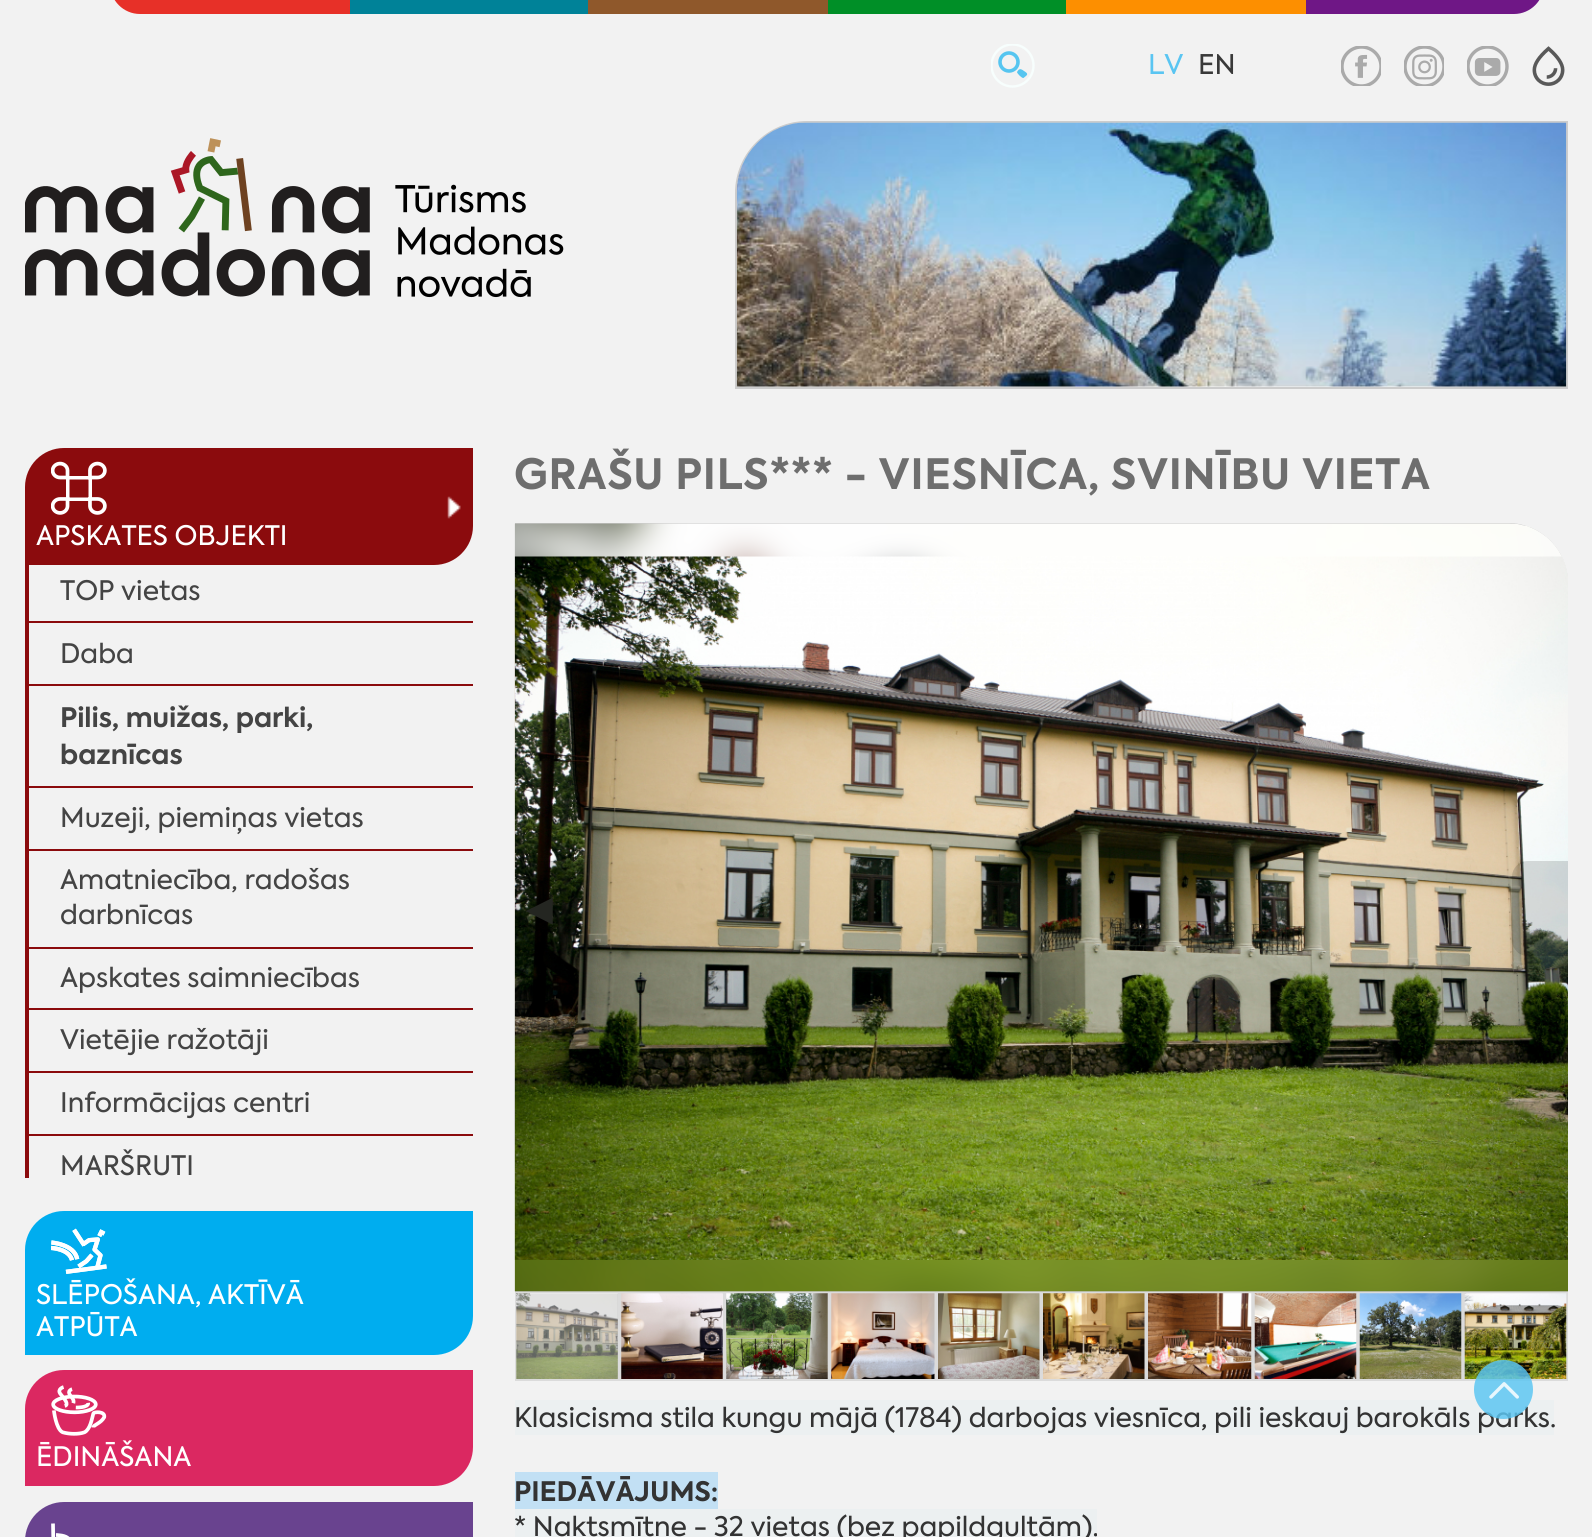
import math
import cairo


def use_color(cr, r, g, b):
  cr.set_source_rgb(r / 255, g / 255, b / 255)

def text(cr, x, y, s, family, size, color, bold=False, italic=False):
  cr.select_font_face(family, cairo.FONT_SLANT_ITALIC if italic else cairo.FONT_SLANT_NORMAL, cairo.FONT_WEIGHT_BOLD if bold else cairo.FONT_WEIGHT_NORMAL)
  cr.set_font_size(size)
  use_color(cr, *color)
  cr.move_to(x, y)
  cr.show_text(s)

def spaced_text(cr, x, y, s, letter, word):
  cr.move_to(x, y)
  for ch in s:
    cr.show_text(ch)
    cr.rel_move_to(letter + word * (ch == ' '), 0)

def box(cr, x, y, w, h, *color):
  use_color(cr, *color)
  cr.rectangle(x, y, w, h)
  cr.fill()

def picture(cr, path, x, y, w, h):
  cr.save()
  cr.set_source_surface(cairo.ImageSurface.create_from_png(path), x, y)
  cr.rectangle(x, y, w, h)
  cr.fill()
  cr.restore()

def draw(cr):
  use_color(cr, 242, 242, 242)
  cr.paint()
  cr.save()
  cr.new_path()
  cr.move_to(110, -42)
  cr.line_to(1544, -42)
  cr.line_to(1544, -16)
  cr.curve_to(1544, 0.5, 1530.5, 14, 1514, 14)
  cr.line_to(140, 14)
  cr.curve_to(123.5, 14, 110, 0.5, 110, -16)
  cr.close_path()
  cr.clip()
  box(cr, 114, 0, 236, 14, 231, 48, 40)
  cr.restore()
  box(cr, 350, 0, 238, 14, 0, 130, 152)
  box(cr, 588, 0, 240, 14, 143, 88, 43)
  box(cr, 828, 0, 238, 14, 0, 143, 39)
  box(cr, 1066, 0, 240, 14, 253, 143, 0)
  cr.save()
  cr.new_path()
  cr.move_to(110, -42)
  cr.line_to(1544, -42)
  cr.line_to(1544, -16)
  cr.curve_to(1544, 0.5, 1530.5, 14, 1514, 14)
  cr.line_to(140, 14)
  cr.curve_to(123.5, 14, 110, 0.5, 110, -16)
  cr.close_path()
  cr.clip()
  box(cr, 1306, 0, 234, 14, 111, 23, 134)
  cr.restore()
  cr.save()
  cr.rectangle(991, 44, 45, 44)
  cr.clip()
  cr.arc(1012.5, 65.5, 21, 0, 2 * math.pi)
  use_color(cr, 247, 254, 253)
  cr.set_line_width(2.4)
  cr.stroke()
  cr.restore()
  use_color(cr, 86, 197, 240)
  cr.new_path()
  cr.move_to(1018, 70.5)
  cr.line_to(1017, 72)
  cr.curve_to(1017, 73.5, 1022, 78.5, 1023.5, 78)
  cr.line_to(1026.5, 75.5)
  cr.curve_to(1028.5, 73.5, 1025.5, 72, 1024, 71)
  cr.curve_to(1022, 69.5, 1020, 68, 1018, 70.5)
  cr.close_path()
  cr.fill()
  cr.arc(1009, 62, 9, 0, 2 * math.pi)
  cr.set_line_width(3.6)
  cr.stroke()
  picture(cr, "img_01.png", 1341, 46, 40, 40)
  picture(cr, "img_02.png", 1404, 46, 40, 40)
  picture(cr, "img_03.png", 1467, 46, 42, 40)
  picture(cr, "img_04.png", 1532, 46, 33, 40)
  picture(cr, "img_05.png", 25, 138, 539, 160)
  cr.new_path()
  cr.move_to(807, 122)
  cr.line_to(1567, 122)
  cr.line_to(1567, 388)
  cr.line_to(736, 388)
  cr.line_to(736, 193)
  cr.curve_to(736, 154, 768, 122, 807, 122)
  cr.close_path()
  use_color(cr, 204, 204, 204)
  cr.set_line_width(2)
  cr.stroke()
  use_color(cr, 255, 255, 255)
  cr.new_path()
  cr.move_to(807, 123)
  cr.line_to(1566, 123)
  cr.line_to(1566, 387)
  cr.line_to(737, 387)
  cr.line_to(737, 193)
  cr.curve_to(737, 154.5, 768.5, 123, 807, 123)
  cr.close_path()
  cr.fill()
  picture(cr, "img_06.png", 736, 122, 831, 265)
  box(cr, 25, 562, 4, 616, 139, 11, 13)
  cr.new_path()
  cr.move_to(64, 448)
  cr.line_to(473, 448)
  cr.line_to(473, 526)
  cr.curve_to(473, 547.5, 455.5, 565, 434, 565)
  cr.line_to(25, 565)
  cr.line_to(25, 487)
  cr.curve_to(25, 465.5, 42.5, 448, 64, 448)
  cr.close_path()
  cr.fill()
  picture(cr, "img_07.png", 447, 496, 14, 23)
  picture(cr, "img_08.png", 51, 461, 56, 54)
  box(cr, 28, 621, 445, 2, 139, 11, 13)
  box(cr, 28, 684, 445, 2, 139, 11, 13)
  box(cr, 28, 786, 445, 2, 139, 11, 13)
  box(cr, 28, 849, 445, 2, 139, 11, 13)
  box(cr, 28, 947, 445, 2, 139, 11, 13)
  box(cr, 28, 1008, 445, 2, 139, 11, 13)
  box(cr, 28, 1071, 445, 2, 139, 11, 13)
  box(cr, 28, 1134, 445, 2, 139, 11, 13)
  use_color(cr, 0, 173, 239)
  cr.new_path()
  cr.move_to(64, 1211)
  cr.line_to(473, 1211)
  cr.line_to(473, 1316)
  cr.curve_to(473, 1337.5, 455.5, 1355, 434, 1355)
  cr.line_to(25, 1355)
  cr.line_to(25, 1250)
  cr.curve_to(25, 1228.5, 42.5, 1211, 64, 1211)
  cr.close_path()
  cr.fill()
  picture(cr, "img_09.png", 51, 1228, 56, 46)
  use_color(cr, 219, 40, 97)
  cr.new_path()
  cr.move_to(64, 1370)
  cr.line_to(473, 1370)
  cr.line_to(473, 1447)
  cr.curve_to(473, 1468.5, 455.5, 1486, 434, 1486)
  cr.line_to(25, 1486)
  cr.line_to(25, 1409)
  cr.curve_to(25, 1387.5, 42.5, 1370, 64, 1370)
  cr.close_path()
  cr.fill()
  picture(cr, "img_10.png", 51, 1385, 56, 51)
  use_color(cr, 105, 67, 143)
  cr.new_path()
  cr.move_to(64, 1502)
  cr.line_to(473, 1502)
  cr.line_to(473, 1537)
  cr.curve_to(473, 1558.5, 455.5, 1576, 434, 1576)
  cr.line_to(25, 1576)
  cr.line_to(25, 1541)
  cr.curve_to(25, 1519.5, 42.5, 1502, 64, 1502)
  cr.close_path()
  cr.fill()
  cr.new_path()
  cr.move_to(56, 1535)
  cr.curve_to(56, 1535, 67, 1535, 69, 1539.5)
  cr.move_to(53, 1523.5)
  cr.line_to(53.5, 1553)
  use_color(cr, 255, 255, 255)
  cr.set_line_width(3.7)
  cr.stroke()
  use_color(cr, 204, 204, 204)
  cr.new_path()
  cr.move_to(515, 523)
  cr.line_to(1508, 523)
  cr.curve_to(1541, 523, 1568, 550, 1568, 583)
  cr.line_to(1568, 1292)
  cr.line_to(515, 1292)
  cr.close_path()
  cr.fill()
  picture(cr, "img_11.png", 514, 523, 1054, 769)
  picture(cr, "img_12.png", 514, 556, 1054, 704)
  cr.set_source_rgba(0, 0, 0, 0.14)
  cr.new_path()
  cr.move_to(515, 861)
  cr.line_to(555, 861)
  cr.curve_to(564, 861, 571, 868, 571, 877)
  cr.line_to(571, 940)
  cr.curve_to(571, 949, 564, 956, 555, 956)
  cr.line_to(515, 956)
  cr.close_path()
  cr.fill()
  cr.new_path()
  cr.move_to(1528, 861)
  cr.line_to(1568, 861)
  cr.line_to(1568, 956)
  cr.line_to(1528, 956)
  cr.curve_to(1519, 956, 1512, 949, 1512, 940)
  cr.line_to(1512, 877)
  cr.curve_to(1512, 868, 1519, 861, 1528, 861)
  cr.close_path()
  cr.fill()
  use_color(cr, 197, 197, 197)
  cr.rectangle(516, 1293, 103, 87)
  cr.fill_preserve()
  use_color(cr, 219, 219, 219)
  cr.set_line_width(2)
  cr.stroke()
  picture(cr, "img_13.png", 516, 1293, 102, 86)
  cr.rectangle(621, 1293, 103, 87)
  cr.stroke()
  picture(cr, "img_14.png", 621, 1293, 102, 86)
  cr.rectangle(726, 1293, 103, 87)
  cr.stroke()
  picture(cr, "img_15.png", 726, 1293, 102, 86)
  cr.rectangle(831, 1293, 104, 87)
  cr.stroke()
  picture(cr, "img_16.png", 831, 1293, 104, 86)
  cr.rectangle(937, 1293, 103, 87)
  cr.stroke()
  picture(cr, "img_17.png", 938, 1293, 102, 86)
  cr.rectangle(1042, 1293, 103, 87)
  cr.stroke()
  picture(cr, "img_18.png", 1043, 1293, 102, 86)
  cr.rectangle(1147, 1293, 105, 87)
  cr.stroke()
  picture(cr, "img_19.png", 1148, 1293, 104, 86)
  cr.rectangle(1254, 1293, 103, 87)
  cr.stroke()
  picture(cr, "img_20.png", 1254, 1293, 103, 86)
  cr.rectangle(1359, 1293, 103, 87)
  cr.stroke()
  picture(cr, "img_21.png", 1359, 1293, 103, 86)
  cr.rectangle(1464, 1293, 103, 87)
  cr.stroke()
  picture(cr, "img_22.png", 1464, 1293, 103, 86)
  box(cr, 515, 1400, 1039, 35, 236, 240, 241)
  box(cr, 515, 1472, 203, 37, 194, 224, 244)
  box(cr, 515, 1509, 582, 28, 236, 240, 241)
  text(cr, 1148, 74, "LV", "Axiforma", 27, (90, 197, 242))
  text(cr, 1198, 74, "EN", "Axiforma", 27, (57, 57, 57))
  text(cr, 36, 545, "APSKATES OBJEKTI", "Axiforma", 26.8, (255, 255, 255))
  text(cr, 60, 600, "TOP vietas", "Axiforma", 26.8, (68, 68, 68))
  text(cr, 60, 663, "Daba", "Axiforma", 26.8, (68, 68, 68))
  text(cr, 60, 727, "Pilis, muižas, parki,", "Axiforma", 26.8, (68, 68, 68), bold=True)
  text(cr, 60, 764, "baznīcas", "Axiforma", 26.8, (68, 68, 68), bold=True)
  text(cr, 60, 827, "Muzeji, piemiņas vietas", "Axiforma", 26.8, (68, 68, 68))
  text(cr, 60, 889, "Amatniecība, radošas", "Axiforma", 26.8, (68, 68, 68))
  text(cr, 60, 924, "darbnīcas", "Axiforma", 26.8, (68, 68, 68))
  text(cr, 60, 987, "Apskates saimniecības", "Axiforma", 26.8, (68, 68, 68))
  text(cr, 60, 1049, "Vietējie ražotāji", "Axiforma", 26.8, (68, 68, 68))
  text(cr, 60, 1112, "Informācijas centri", "Axiforma", 26.8, (68, 68, 68))
  text(cr, 60, 1175, "MARŠRUTI", "Axiforma", 26.8, (68, 68, 68))
  text(cr, 36, 1304, "SLĒPOŠANA, AKTĪVĀ", "Axiforma", 26.8, (255, 255, 255))
  text(cr, 36, 1336, "ATPŪTA", "Axiforma", 26.8, (255, 255, 255))
  text(cr, 36, 1466, "ĒDINĀŠANA", "Axiforma", 26.8, (255, 255, 255))
  cr.select_font_face("Axiforma", cairo.FONT_SLANT_NORMAL, cairo.FONT_WEIGHT_BOLD)
  cr.set_font_size(41.65)
  use_color(cr, 110, 110, 110)
  spaced_text(cr, 514, 489, "GRAŠU PILS*** - VIESNĪCA, SVINĪBU VIETA", 0.85, 0)
  text(cr, 517, 924, "◄", "Liberation Sans", 45, (36, 38, 33))
  text(cr, 514, 1427, "Klasicisma stila kungu mājā (1784) darbojas viesnīca, pili ieskauj barokāls parks.", "Axiforma", 26.8, (51, 51, 51))
  text(cr, 514, 1501, "PIEDĀVĀJUMS:", "Axiforma", 26.8, (51, 51, 51), bold=True)
  text(cr, 514, 1536, "* Naktsmītne - 32 vietas (bez papildgultām).", "Axiforma", 26.8, (51, 51, 51))
  cr.set_source_rgba(0.353, 0.773, 0.949, 0.83)
  cr.new_path()
  cr.arc(1503.5, 1389.5, 29.5, 0, 2 * math.pi)
  cr.fill()
  picture(cr, "img_23.png", 1489, 1382, 30, 17)


surface = cairo.ImageSurface(cairo.FORMAT_RGB24, 1592, 1537)
cr = cairo.Context(surface)
options = cairo.FontOptions()
options.set_hint_metrics(cairo.HINT_METRICS_OFF)
options.set_hint_style(cairo.HINT_STYLE_NONE)
cr.set_font_options(options)
cr.set_miter_limit(4)
draw(cr)
surface.write_to_png("out.png")
